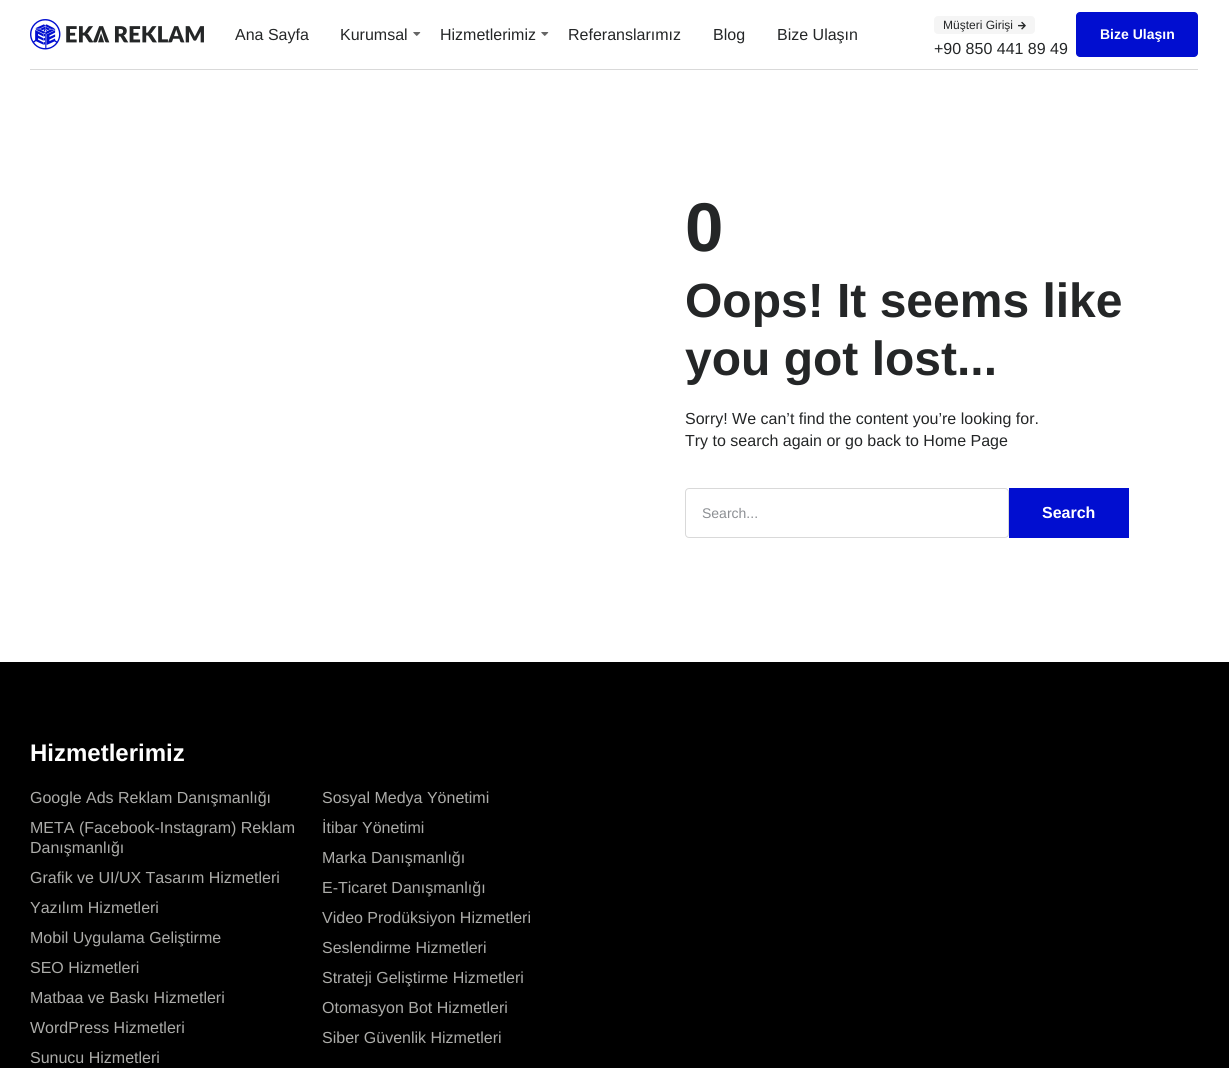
import math
import cairo


def use_color(cr, r, g, b):
  cr.set_source_rgb(r / 255, g / 255, b / 255)

def text(cr, x, y, s, family, size, color, bold=False, italic=False):
  cr.select_font_face(family, cairo.FONT_SLANT_ITALIC if italic else cairo.FONT_SLANT_NORMAL, cairo.FONT_WEIGHT_BOLD if bold else cairo.FONT_WEIGHT_NORMAL)
  cr.set_font_size(size)
  use_color(cr, *color)
  cr.move_to(x, y)
  cr.show_text(s)

def box(cr, x, y, w, h, *color):
  use_color(cr, *color)
  cr.rectangle(x, y, w, h)
  cr.fill()

def round_rect(cr, x, y, w, h, r):
  cr.new_sub_path()
  for i, (u, v) in enumerate([(x + w - r, y + h - r), (x + r, y + h - r), (x + r, y + r), (x + w - r, y + r)]):
    cr.arc(u, v, r, i * math.pi / 2, (i + 1) * math.pi / 2)
  cr.close_path()

def picture(cr, path, x, y, w, h):
  cr.save()
  cr.set_source_surface(cairo.ImageSurface.create_from_png(path), x, y)
  cr.rectangle(x, y, w, h)
  cr.fill()
  cr.restore()

def draw(cr):
  use_color(cr, 255, 255, 255)
  cr.paint()
  box(cr, 30, 69, 1168, 1, 217, 217, 217)
  picture(cr, "img_01.png", 30, 19, 174, 31)
  picture(cr, "img_02.png", 413, 32, 8, 4)
  picture(cr, "img_02.png", 541, 32, 8, 4)
  use_color(cr, 245, 245, 245)
  round_rect(cr, 934, 16, 101, 18, 4)
  cr.fill()
  picture(cr, "img_03.png", 1018, 21, 8, 9)
  use_color(cr, 1, 14, 208)
  round_rect(cr, 1076, 12, 122, 45, 4)
  cr.fill()
  round_rect(cr, 685.5, 488.5, 323, 49, 3.5)
  use_color(cr, 217, 217, 217)
  cr.set_line_width(1)
  cr.stroke()
  box(cr, 1009, 488, 120, 50, 1, 14, 208)
  box(cr, 0, 662, 1229, 406, 0, 0, 0)
  text(cr, 235, 40, "Ana Sayfa", "Liberation Sans", 16, (36, 38, 39))
  text(cr, 340, 40, "Kurumsal", "Liberation Sans", 16, (36, 38, 39))
  text(cr, 440, 40, "Hizmetlerimiz", "Liberation Sans", 16, (36, 38, 39))
  text(cr, 568, 40, "Referanslarımız", "Liberation Sans", 16, (36, 38, 39))
  text(cr, 713, 40, "Blog", "Liberation Sans", 16, (36, 38, 39))
  text(cr, 777, 40, "Bize Ulaşın", "Liberation Sans", 16, (36, 38, 39))
  text(cr, 943, 29, "Müşteri Girişi", "Liberation Sans", 12, (36, 38, 39))
  text(cr, 934, 54, "+90 850 441 89 49", "Liberation Sans", 16, (36, 38, 39))
  text(cr, 1100, 39, "Bize Ulaşın", "Liberation Sans", 14, (255, 255, 255), bold=True)
  text(cr, 685, 251, "0", "Liberation Sans", 69, (36, 38, 39), bold=True)
  text(cr, 685, 317, "Oops! It seems like", "Liberation Sans", 48, (36, 38, 39), bold=True)
  text(cr, 685, 375, "you got lost...", "Liberation Sans", 48, (36, 38, 39), bold=True)
  text(cr, 685, 424, "Sorry! We can’t find the content you’re looking for.", "Liberation Sans", 16, (36, 38, 39))
  text(cr, 685, 446, "Try to search again or go back to Home Page", "Liberation Sans", 16, (36, 38, 39))
  text(cr, 702, 518, "Search...", "Liberation Sans", 14, (140, 143, 147))
  text(cr, 1042, 518, "Search", "Liberation Sans", 16, (255, 255, 255), bold=True)
  text(cr, 30, 761, "Hizmetlerimiz", "Liberation Sans", 24, (255, 255, 255), bold=True)
  text(cr, 30, 803, "Google Ads Reklam Danışmanlığı", "Liberation Sans", 16, (172, 172, 169))
  text(cr, 30, 833, "META (Facebook-Instagram) Reklam", "Liberation Sans", 16, (172, 172, 169))
  text(cr, 30, 853, "Danışmanlığı", "Liberation Sans", 16, (172, 172, 169))
  text(cr, 30, 883, "Grafik ve UI/UX Tasarım Hizmetleri", "Liberation Sans", 16, (172, 172, 169))
  text(cr, 30, 913, "Yazılım Hizmetleri", "Liberation Sans", 16, (172, 172, 169))
  text(cr, 30, 943, "Mobil Uygulama Geliştirme", "Liberation Sans", 16, (172, 172, 169))
  text(cr, 30, 973, "SEO Hizmetleri", "Liberation Sans", 16, (172, 172, 169))
  text(cr, 30, 1003, "Matbaa ve Baskı Hizmetleri", "Liberation Sans", 16, (172, 172, 169))
  text(cr, 30, 1033, "WordPress Hizmetleri", "Liberation Sans", 16, (172, 172, 169))
  text(cr, 30, 1063, "Sunucu Hizmetleri", "Liberation Sans", 16, (172, 172, 169))
  text(cr, 322, 803, "Sosyal Medya Yönetimi", "Liberation Sans", 16, (172, 172, 169))
  text(cr, 322, 833, "İtibar Yönetimi", "Liberation Sans", 16, (172, 172, 169))
  text(cr, 322, 863, "Marka Danışmanlığı", "Liberation Sans", 16, (172, 172, 169))
  text(cr, 322, 893, "E-Ticaret Danışmanlığı", "Liberation Sans", 16, (172, 172, 169))
  text(cr, 322, 923, "Video Prodüksiyon Hizmetleri", "Liberation Sans", 16, (172, 172, 169))
  text(cr, 322, 953, "Seslendirme Hizmetleri", "Liberation Sans", 16, (172, 172, 169))
  text(cr, 322, 983, "Strateji Geliştirme Hizmetleri", "Liberation Sans", 16, (172, 172, 169))
  text(cr, 322, 1013, "Otomasyon Bot Hizmetleri", "Liberation Sans", 16, (172, 172, 169))
  text(cr, 322, 1043, "Siber Güvenlik Hizmetleri", "Liberation Sans", 16, (172, 172, 169))


surface = cairo.ImageSurface(cairo.FORMAT_RGB24, 1229, 1068)
cr = cairo.Context(surface)
options = cairo.FontOptions()
options.set_hint_metrics(cairo.HINT_METRICS_OFF)
options.set_hint_style(cairo.HINT_STYLE_NONE)
cr.set_font_options(options)
cr.set_miter_limit(4)
draw(cr)
surface.write_to_png("out.png")
